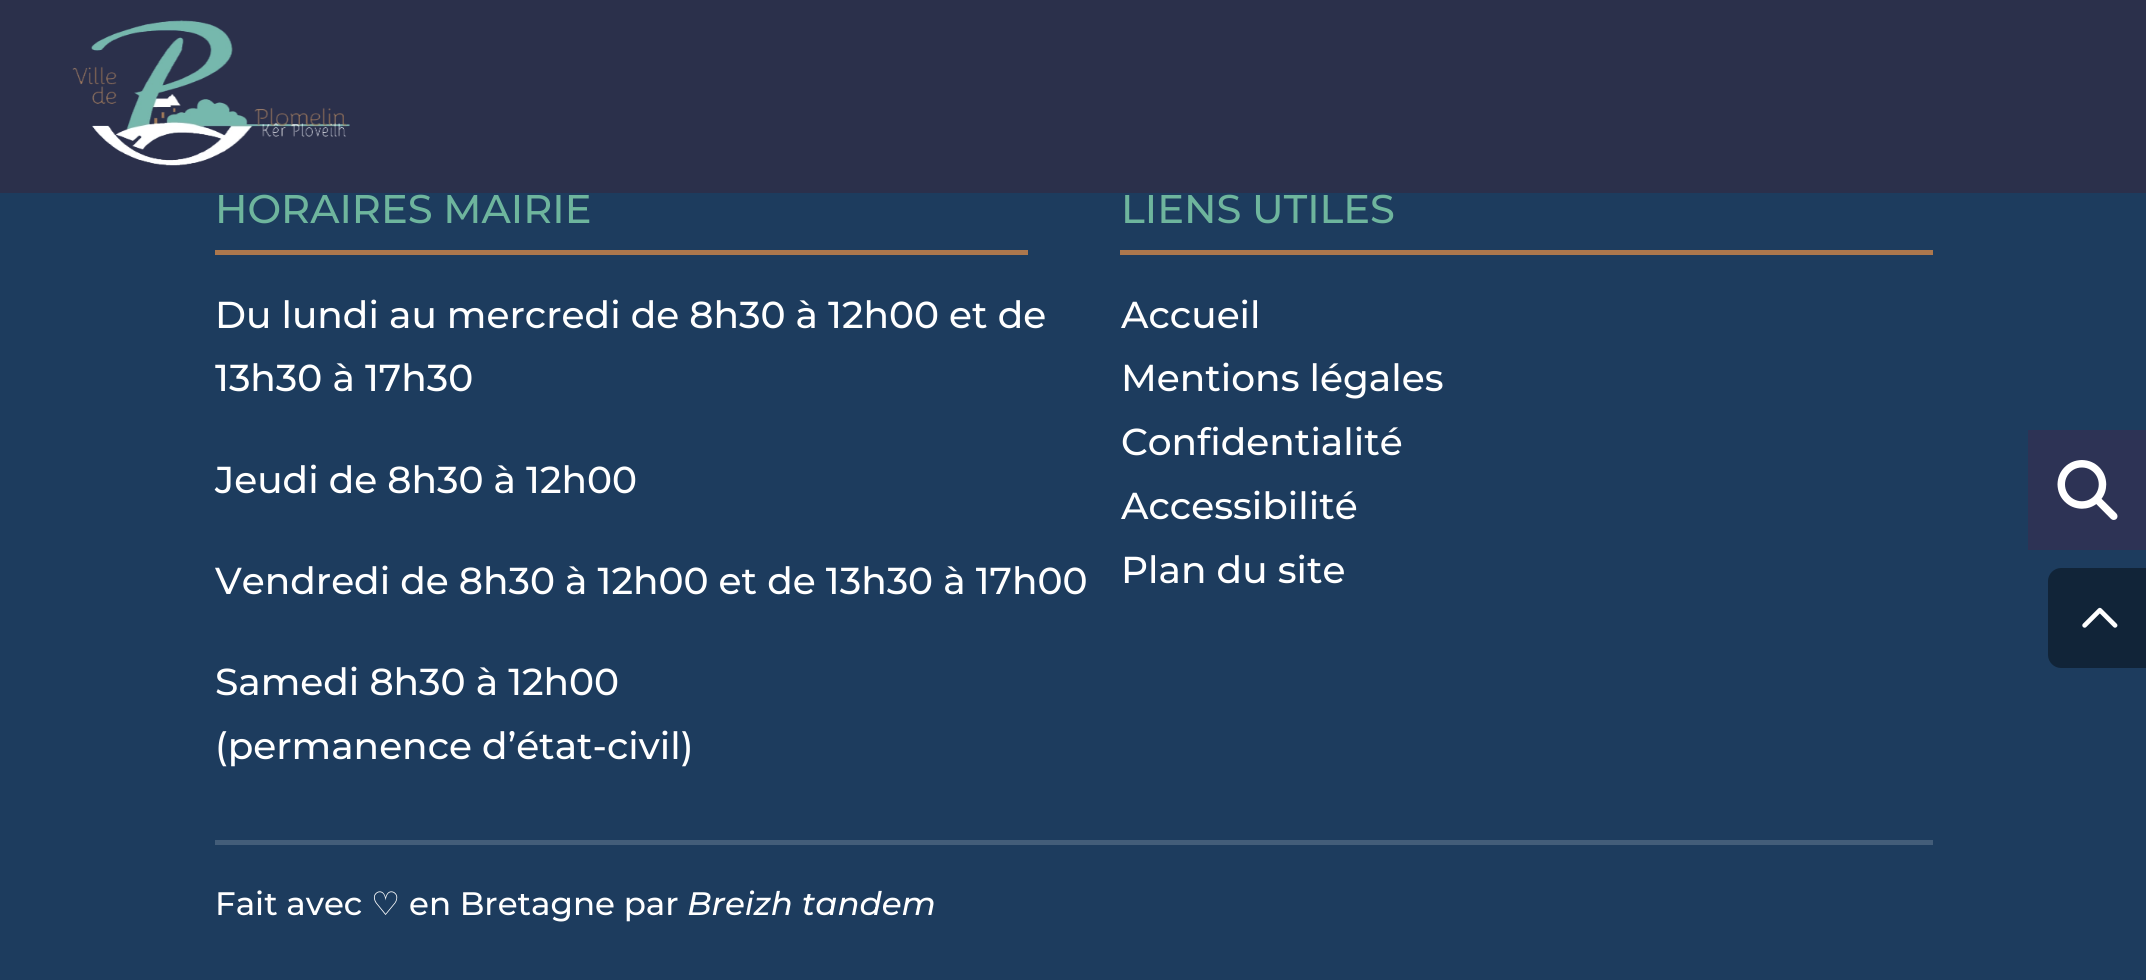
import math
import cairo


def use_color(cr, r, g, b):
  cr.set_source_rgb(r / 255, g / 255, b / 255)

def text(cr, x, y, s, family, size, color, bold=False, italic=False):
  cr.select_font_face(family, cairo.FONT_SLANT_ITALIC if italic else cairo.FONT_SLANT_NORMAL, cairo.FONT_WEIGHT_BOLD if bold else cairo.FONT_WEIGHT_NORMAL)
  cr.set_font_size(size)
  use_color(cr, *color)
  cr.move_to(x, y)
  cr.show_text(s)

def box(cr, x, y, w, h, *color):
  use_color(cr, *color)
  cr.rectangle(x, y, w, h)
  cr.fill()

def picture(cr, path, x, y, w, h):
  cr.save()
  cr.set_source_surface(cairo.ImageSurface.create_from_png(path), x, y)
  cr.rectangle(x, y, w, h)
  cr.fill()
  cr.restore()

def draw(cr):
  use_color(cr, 29, 60, 94)
  cr.paint()
  box(cr, 0, 0, 2146, 193, 43, 48, 75)
  picture(cr, "img_01.png", 72, 20, 278, 146)
  box(cr, 215, 250, 813, 5, 172, 119, 77)
  box(cr, 1120, 250, 813, 5, 172, 119, 77)
  box(cr, 215, 840, 1718, 5, 67, 93, 121)
  box(cr, 2028, 430, 118, 120, 45, 51, 85)
  picture(cr, "img_02.png", 2057, 460, 61, 60)
  use_color(cr, 17, 36, 56)
  cr.new_path()
  cr.move_to(2061, 568)
  cr.line_to(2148, 568)
  cr.line_to(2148, 668)
  cr.line_to(2061, 668)
  cr.curve_to(2054, 668, 2048, 662, 2048, 655)
  cr.line_to(2048, 581)
  cr.curve_to(2048, 574, 2054, 568, 2061, 568)
  cr.close_path()
  cr.fill()
  picture(cr, "img_03.png", 2082, 607, 36, 21)
  text(cr, 215, 223, "HORAIRES MAIRIE", "Montserrat Medium", 40, (110, 181, 157))
  text(cr, 215, 328, "Du lundi au mercredi de 8h30 à 12h00 et de", "Montserrat Medium", 37.5, (255, 255, 255))
  text(cr, 215, 391, "13h30 à 17h30", "Montserrat Medium", 37.5, (255, 255, 255))
  text(cr, 215, 493, "Jeudi de 8h30 à 12h00", "Montserrat Medium", 37.5, (255, 255, 255))
  text(cr, 215, 594, "Vendredi de 8h30 à 12h00 et de 13h30 à 17h00", "Montserrat Medium", 37.5, (255, 255, 255))
  text(cr, 215, 695, "Samedi 8h30 à 12h00", "Montserrat Medium", 37.5, (255, 255, 255))
  text(cr, 215, 759, "(permanence d’état-civil)", "Montserrat Medium", 37.5, (255, 255, 255))
  text(cr, 1121, 223, "LIENS UTILES", "Montserrat Medium", 40, (110, 181, 157))
  text(cr, 1121, 328, "Accueil", "Montserrat Medium", 37.5, (255, 255, 255))
  text(cr, 1121, 391, "Mentions légales", "Montserrat Medium", 37.5, (255, 255, 255))
  text(cr, 1121, 455, "Confidentialité", "Montserrat Medium", 37.5, (255, 255, 255))
  text(cr, 1121, 519, "Accessibilité", "Montserrat Medium", 37.5, (255, 255, 255))
  text(cr, 1121, 583, "Plan du site", "Montserrat Medium", 37.5, (255, 255, 255))
  text(cr, 215, 915, "Fait avec", "Montserrat Medium", 32.5, (255, 255, 255))
  text(cr, 371, 915, "♡", "DejaVu Sans", 32.5, (255, 255, 255))
  text(cr, 409, 915, "en Bretagne par", "Montserrat Medium", 32.5, (255, 255, 255))
  text(cr, 687, 915, "Breizh tandem", "Montserrat Thin", 32.5, (255, 255, 255), italic=True)


surface = cairo.ImageSurface(cairo.FORMAT_RGB24, 2146, 980)
cr = cairo.Context(surface)
options = cairo.FontOptions()
options.set_hint_metrics(cairo.HINT_METRICS_OFF)
options.set_hint_style(cairo.HINT_STYLE_NONE)
cr.set_font_options(options)
cr.set_miter_limit(4)
draw(cr)
surface.write_to_png("out.png")
